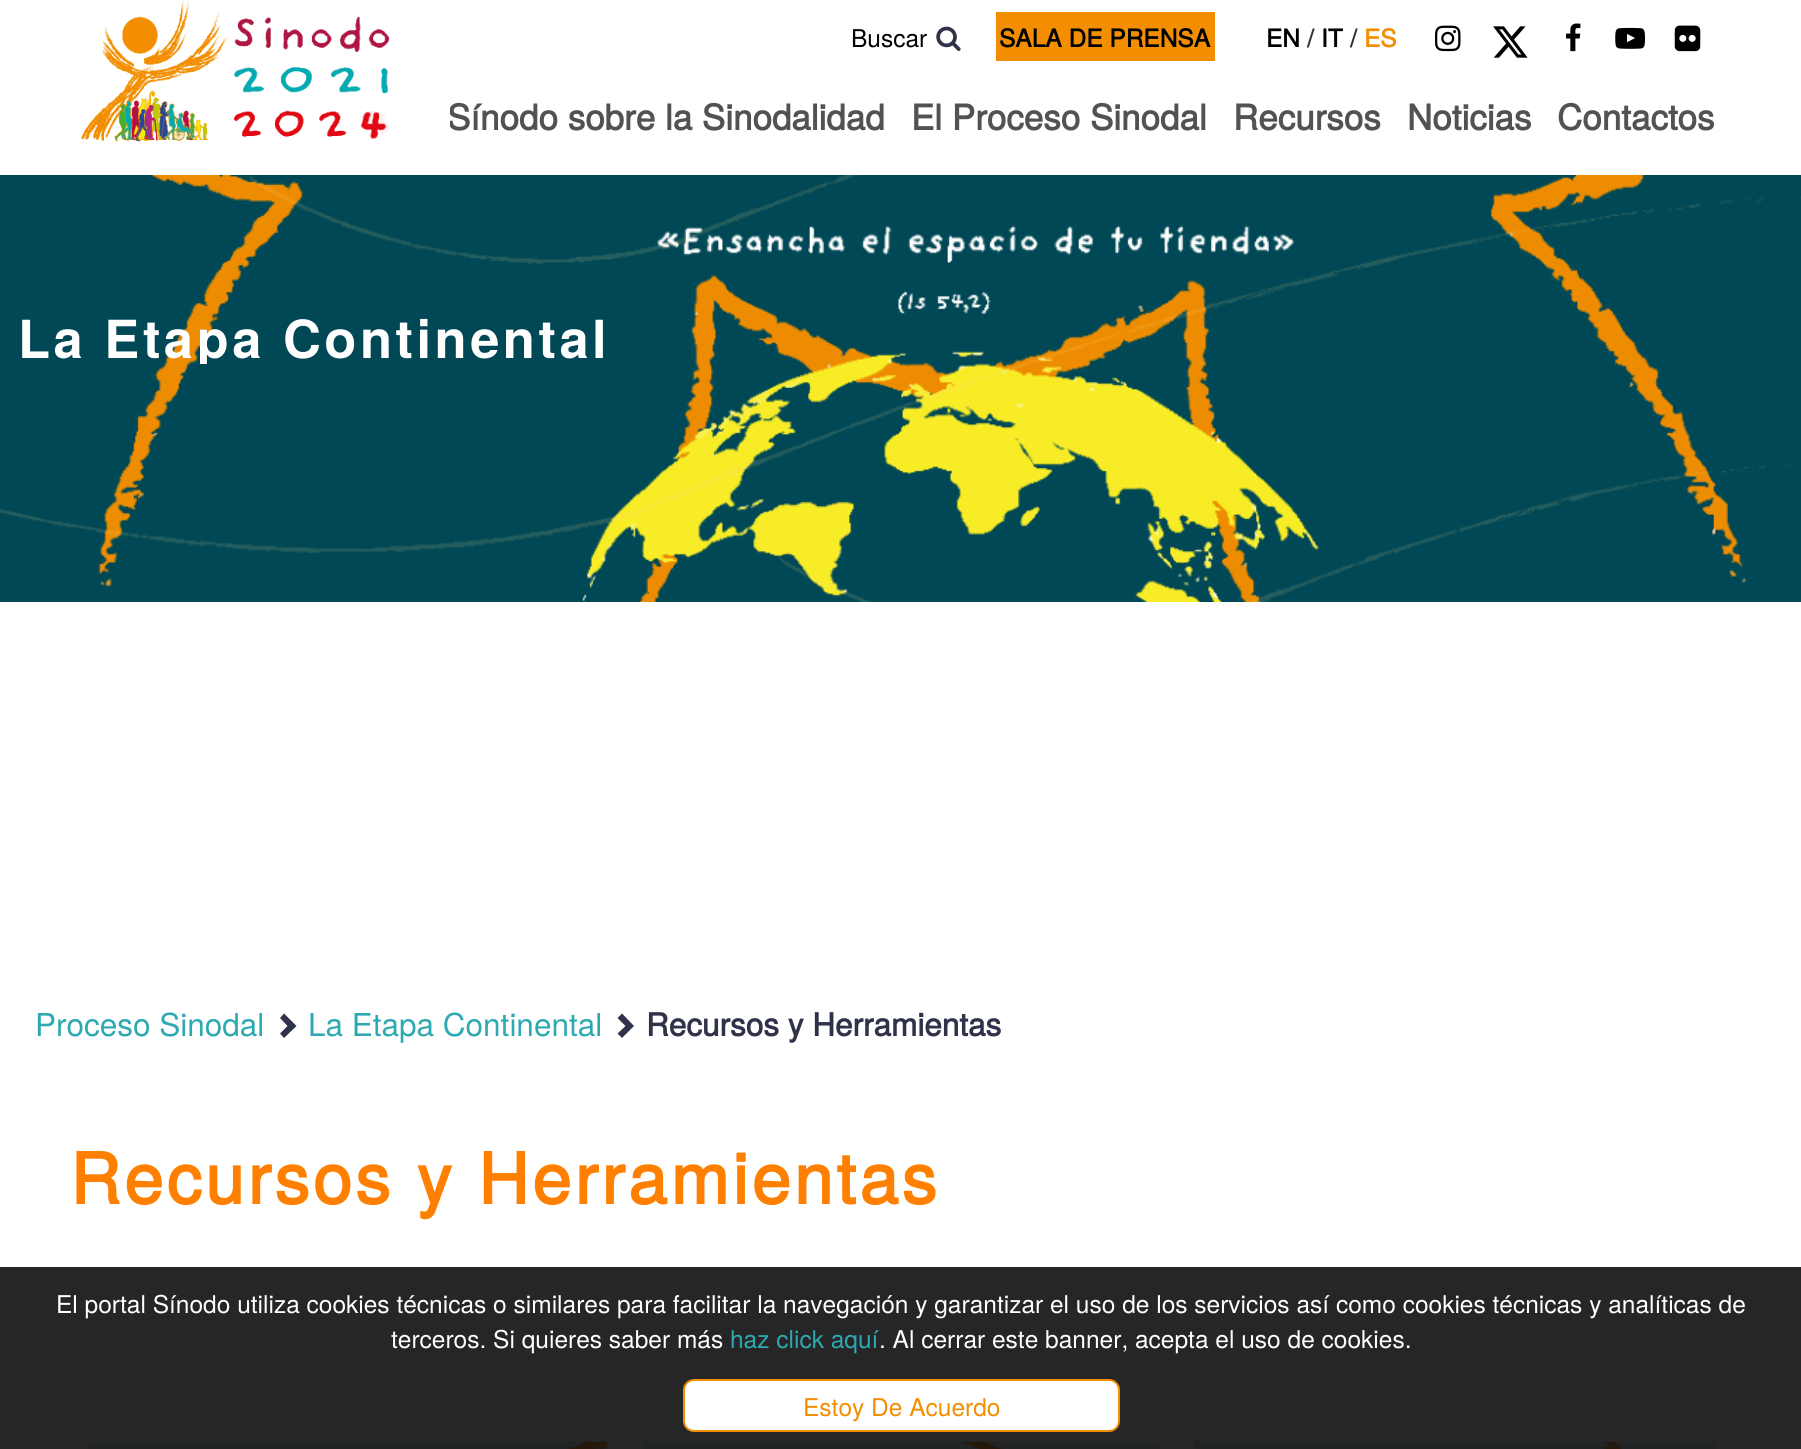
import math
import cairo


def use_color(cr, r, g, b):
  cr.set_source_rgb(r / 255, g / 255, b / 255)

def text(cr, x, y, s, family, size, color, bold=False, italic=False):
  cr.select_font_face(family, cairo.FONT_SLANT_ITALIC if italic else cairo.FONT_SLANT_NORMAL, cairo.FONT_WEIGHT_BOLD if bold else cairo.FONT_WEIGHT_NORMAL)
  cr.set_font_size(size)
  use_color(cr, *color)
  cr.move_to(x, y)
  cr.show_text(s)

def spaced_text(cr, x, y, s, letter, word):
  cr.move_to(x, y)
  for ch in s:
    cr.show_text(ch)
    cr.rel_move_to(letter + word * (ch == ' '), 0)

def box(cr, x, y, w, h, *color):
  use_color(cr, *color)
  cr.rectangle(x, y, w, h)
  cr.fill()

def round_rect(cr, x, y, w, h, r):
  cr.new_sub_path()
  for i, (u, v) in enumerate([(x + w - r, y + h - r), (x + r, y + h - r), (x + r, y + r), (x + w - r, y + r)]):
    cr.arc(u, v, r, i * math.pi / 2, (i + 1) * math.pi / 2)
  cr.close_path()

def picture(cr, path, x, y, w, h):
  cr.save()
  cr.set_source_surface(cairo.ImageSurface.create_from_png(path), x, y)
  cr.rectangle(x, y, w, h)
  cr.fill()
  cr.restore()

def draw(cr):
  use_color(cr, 255, 255, 255)
  cr.paint()
  picture(cr, "img_01.png", 81, 0, 309, 142)
  picture(cr, "img_02.png", 936, 26, 25, 25)
  box(cr, 996, 12, 219, 49, 243, 142, 0)
  picture(cr, "img_03.png", 1435, 25, 26, 27)
  picture(cr, "img_04.png", 1493, 26, 35, 32)
  picture(cr, "img_05.png", 1566, 23, 15, 29)
  picture(cr, "img_06.png", 1615, 27, 30, 22)
  picture(cr, "img_07.png", 1674, 25, 27, 27)
  picture(cr, "img_08.png", 0, 175, 1801, 427)
  use_color(cr, 47, 50, 73)
  cr.new_path()
  cr.move_to(296.5, 1026)
  cr.line_to(284, 1038)
  cr.line_to(280, 1033.5)
  cr.line_to(287.5, 1026)
  cr.line_to(280, 1018)
  cr.line_to(284, 1013.5)
  cr.close_path()
  cr.fill()
  cr.new_path()
  cr.move_to(634, 1026)
  cr.line_to(622, 1038)
  cr.line_to(617.5, 1033.5)
  cr.line_to(625.5, 1026)
  cr.line_to(617.5, 1018)
  cr.line_to(622, 1013.5)
  cr.close_path()
  cr.fill()
  picture(cr, "img_09.png", 87, 1442, 521, 7)
  picture(cr, "img_10.png", 642, 1442, 519, 7)
  picture(cr, "img_11.png", 1195, 1442, 520, 7)
  cr.set_source_rgba(0, 0, 0, 0.85)
  cr.rectangle(0, 1267, 1801, 182)
  cr.fill()
  use_color(cr, 255, 255, 255)
  round_rect(cr, 684, 1380, 435, 51, 10)
  cr.fill_preserve()
  use_color(cr, 243, 142, 0)
  cr.stroke()
  text(cr, 851, 47, "Buscar", "TeX Gyre Heros", 24.5, (0, 0, 0))
  text(cr, 999, 47, "SALA DE PRENSA", "TeX Gyre Heros", 24.5, (0, 0, 0), bold=True)
  text(cr, 1266, 47, "EN", "TeX Gyre Heros", 24.5, (0, 0, 0), bold=True)
  text(cr, 1307, 47, "/", "TeX Gyre Heros", 24.5, (51, 51, 51), bold=True)
  text(cr, 1321, 47, "IT", "TeX Gyre Heros", 24.5, (0, 0, 0), bold=True)
  text(cr, 1350, 47, "/", "TeX Gyre Heros", 24.5, (51, 51, 51), bold=True)
  text(cr, 1364, 47, "ES", "TeX Gyre Heros", 24.5, (243, 142, 0), bold=True)
  text(cr, 447, 130, "Sínodo sobre la Sinodalidad", "TeX Gyre Heros", 35, (82, 82, 82), bold=True)
  box(cr, 448, 108, 2, 20, 255, 255, 255)
  text(cr, 911, 130, "El Proceso Sinodal", "TeX Gyre Heros", 35, (82, 82, 82), bold=True)
  text(cr, 1233, 130, "Recursos", "TeX Gyre Heros", 35, (82, 82, 82), bold=True)
  text(cr, 1407, 130, "Noticias", "TeX Gyre Heros", 35, (82, 82, 82), bold=True)
  text(cr, 1557, 130, "Contactos", "TeX Gyre Heros", 35, (82, 82, 82), bold=True)
  cr.save()
  cr.rectangle(18, 312, 591, 52)
  cr.clip()
  cr.select_font_face("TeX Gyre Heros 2", cairo.FONT_SLANT_NORMAL, cairo.FONT_WEIGHT_BOLD)
  cr.set_font_size(52.5)
  use_color(cr, 255, 255, 255)
  spaced_text(cr, 18, 358, "La Etapa Continental", 3.5, 0)
  cr.restore()
  text(cr, 35, 1036, "Proceso Sinodal", "TeX Gyre Heros", 31.5, (45, 169, 177))
  text(cr, 308, 1036, "La Etapa Continental", "TeX Gyre Heros", 31.5, (45, 169, 177))
  text(cr, 646, 1036, "Recursos y Herramientas", "TeX Gyre Heros", 31.5, (47, 50, 73), bold=True)
  cr.set_font_size(70)
  use_color(cr, 255, 127, 0)
  spaced_text(cr, 70, 1204, "Recursos y Herramientas", 3.5, 0)
  text(cr, 56, 1313, "El portal Sínodo utiliza cookies técnicas o similares para facilitar la navegación y garantizar el uso de los servicios así como cookies técnicas y analíticas de", "TeX Gyre Heros", 24.5, (255, 255, 255))
  text(cr, 391, 1348, "terceros. Si quieres saber más", "TeX Gyre Heros", 24.5, (255, 255, 255))
  text(cr, 730, 1348, "haz click aquí", "TeX Gyre Heros", 24.5, (45, 169, 177))
  text(cr, 879, 1348, ". Al cerrar este banner, acepta el uso de cookies.", "TeX Gyre Heros", 24.5, (255, 255, 255))
  text(cr, 803, 1416, "Estoy De Acuerdo", "TeX Gyre Heros", 24.5, (243, 142, 0))


surface = cairo.ImageSurface(cairo.FORMAT_RGB24, 1801, 1449)
cr = cairo.Context(surface)
options = cairo.FontOptions()
options.set_hint_metrics(cairo.HINT_METRICS_OFF)
options.set_hint_style(cairo.HINT_STYLE_NONE)
cr.set_font_options(options)
cr.set_miter_limit(4)
draw(cr)
surface.write_to_png("out.png")
